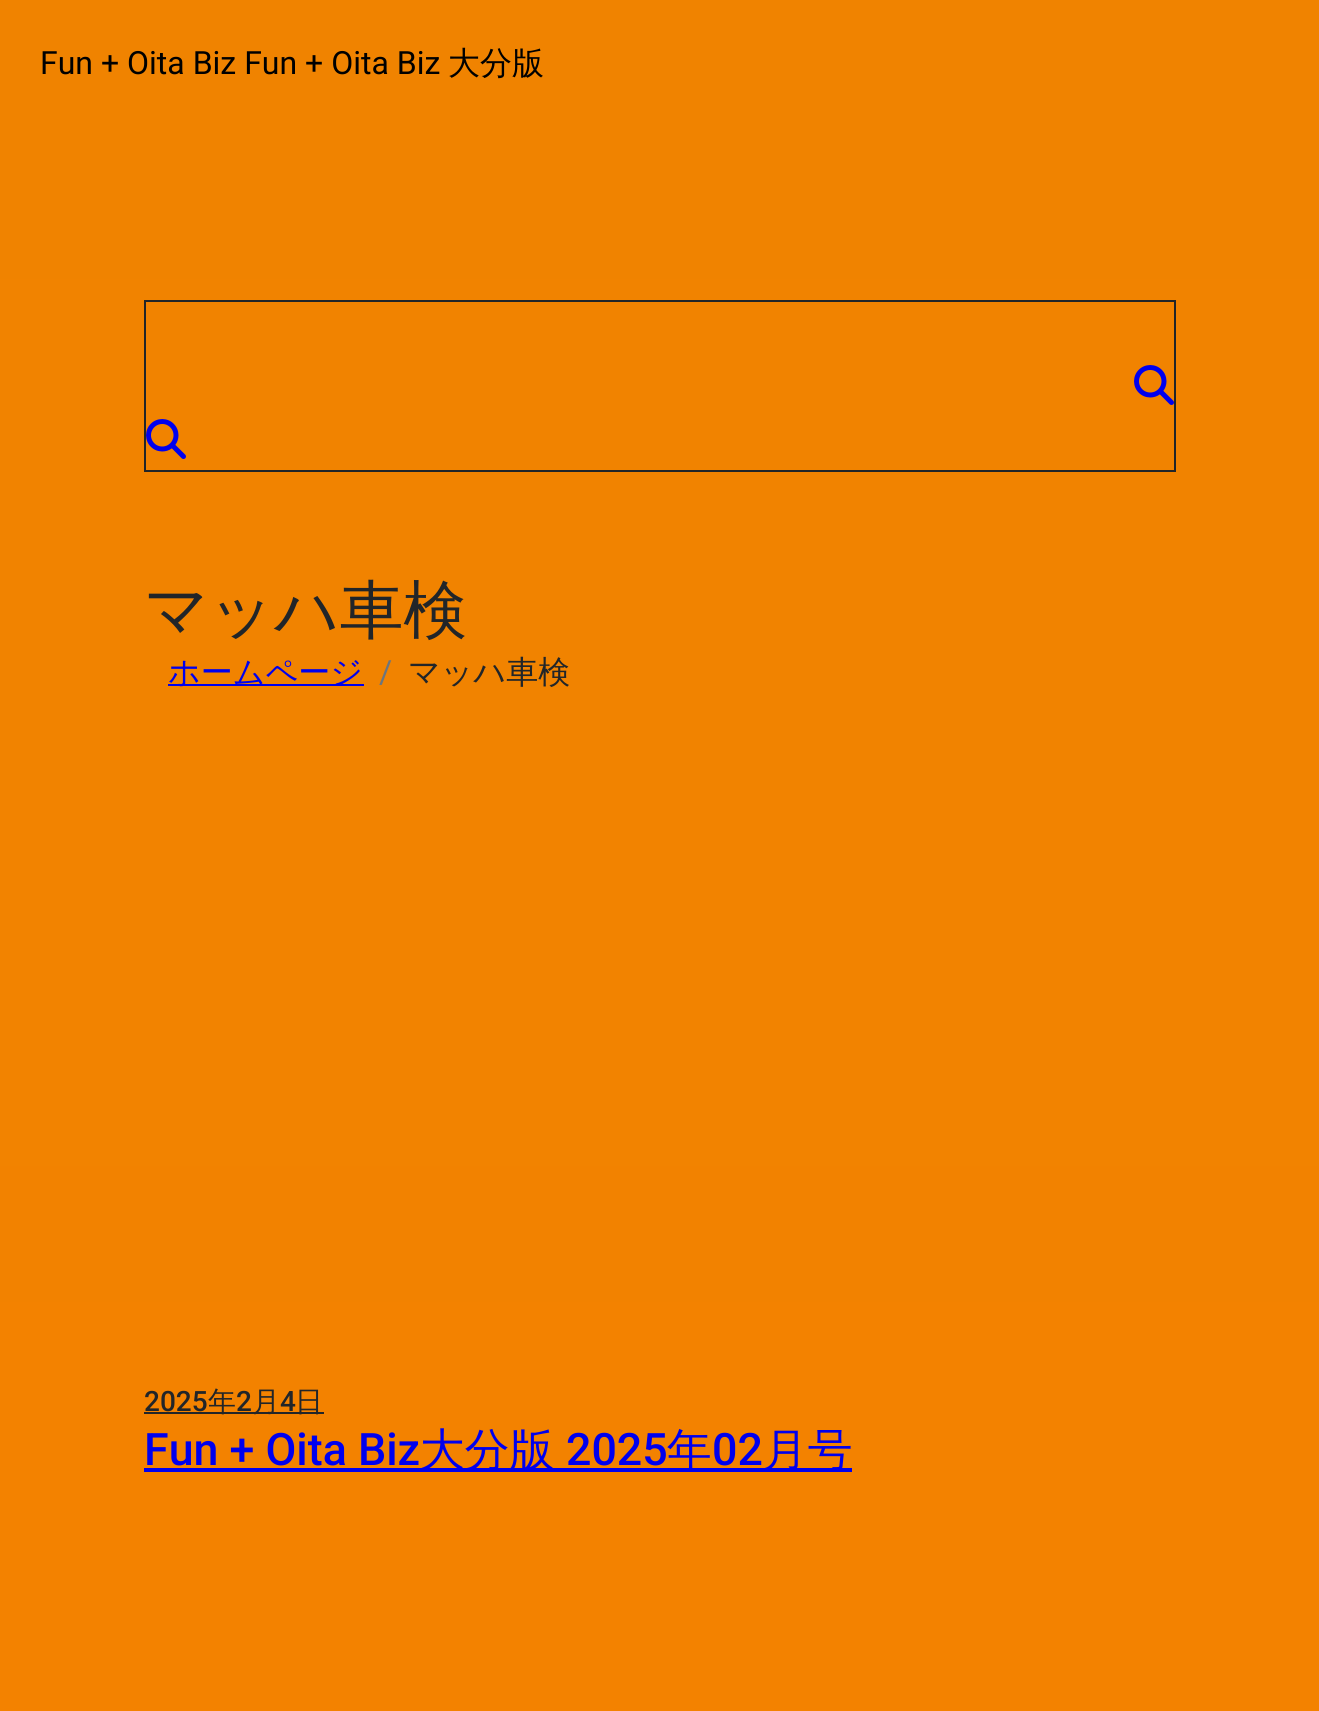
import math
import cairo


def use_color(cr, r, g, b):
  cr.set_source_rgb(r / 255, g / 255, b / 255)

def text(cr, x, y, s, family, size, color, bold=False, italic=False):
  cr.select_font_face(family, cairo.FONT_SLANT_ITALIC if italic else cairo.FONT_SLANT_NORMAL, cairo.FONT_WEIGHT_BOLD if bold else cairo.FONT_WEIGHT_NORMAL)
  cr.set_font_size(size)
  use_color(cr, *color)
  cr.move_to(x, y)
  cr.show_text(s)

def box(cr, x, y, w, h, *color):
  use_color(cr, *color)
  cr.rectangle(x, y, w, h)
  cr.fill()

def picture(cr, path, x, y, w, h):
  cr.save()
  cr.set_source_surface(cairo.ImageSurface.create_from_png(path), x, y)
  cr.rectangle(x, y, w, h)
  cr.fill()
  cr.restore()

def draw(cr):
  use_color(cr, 255, 255, 255)
  cr.paint()
  gradient = cairo.LinearGradient(660, 0, 660, 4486)
  gradient.add_color_stop_rgba(0, 0.941, 0.514, 0, 1)
  gradient.add_color_stop_rgba(0.93, 0.973, 0.506, 0, 1)
  cr.set_source(gradient)
  cr.rectangle(0, 0, 1319, 1711)
  cr.fill()
  box(cr, 144, 1412, 180, 2, 33, 37, 41)
  box(cr, 144, 1468, 708, 4, 0, 0, 238)
  box(cr, 168, 684, 196, 2, 0, 0, 238)
  cr.rectangle(145, 301, 1030, 170)
  use_color(cr, 33, 37, 41)
  cr.stroke()
  picture(cr, "img_01.png", 1134, 365, 40, 40)
  picture(cr, "img_01.png", 146, 419, 40, 40)
  text(cr, 40, 74, "Fun + Oita Biz Fun + Oita Biz", "Roboto", 32, (0, 0, 0))
  text(cr, 448, 74, "大分版", "WenQuanYi Zen Hei Medium", 32, (0, 0, 0))
  text(cr, 144, 1411, "2025", "Roboto Medium", 28, (33, 37, 41))
  text(cr, 208, 1411, "年", "WenQuanYi Zen Hei Medium", 28, (33, 37, 41))
  text(cr, 236, 1411, "2", "Roboto Medium", 28, (33, 37, 41))
  text(cr, 252, 1411, "月", "WenQuanYi Zen Hei Medium", 28, (33, 37, 41))
  text(cr, 280, 1411, "4", "Roboto Medium", 28, (33, 37, 41))
  text(cr, 295, 1411, "日", "WenQuanYi Zen Hei Medium", 28, (33, 37, 41))
  text(cr, 144, 1465, "Fun + Oita Biz", "Roboto Medium", 44.75, (0, 0, 238))
  text(cr, 420, 1465, "大分版", "WenQuanYi Zen Hei Medium", 44.75, (0, 0, 238))
  text(cr, 566, 1465, "2025", "Roboto Medium", 44.75, (0, 0, 238))
  text(cr, 667, 1465, "年", "WenQuanYi Zen Hei Medium", 44.75, (0, 0, 238))
  text(cr, 712, 1465, "02", "Roboto Medium", 44.75, (0, 0, 238))
  text(cr, 763, 1465, "月号", "WenQuanYi Zen Hei Medium", 44.75, (0, 0, 238))
  text(cr, 144, 632, "マッハ車検", "WenQuanYi Zen Hei Medium", 63.75, (33, 37, 41))
  text(cr, 168, 683, "ホームページ", "WenQuanYi Zen Hei Medium", 32, (0, 0, 238))
  text(cr, 379, 683, "/", "Roboto", 32, (108, 117, 125))
  text(cr, 408, 683, "マッハ車検", "WenQuanYi Zen Hei Medium", 32, (33, 37, 41))


surface = cairo.ImageSurface(cairo.FORMAT_RGB24, 1319, 1711)
cr = cairo.Context(surface)
options = cairo.FontOptions()
options.set_hint_metrics(cairo.HINT_METRICS_OFF)
options.set_hint_style(cairo.HINT_STYLE_NONE)
cr.set_font_options(options)
cr.set_miter_limit(4)
draw(cr)
surface.write_to_png("out.png")
